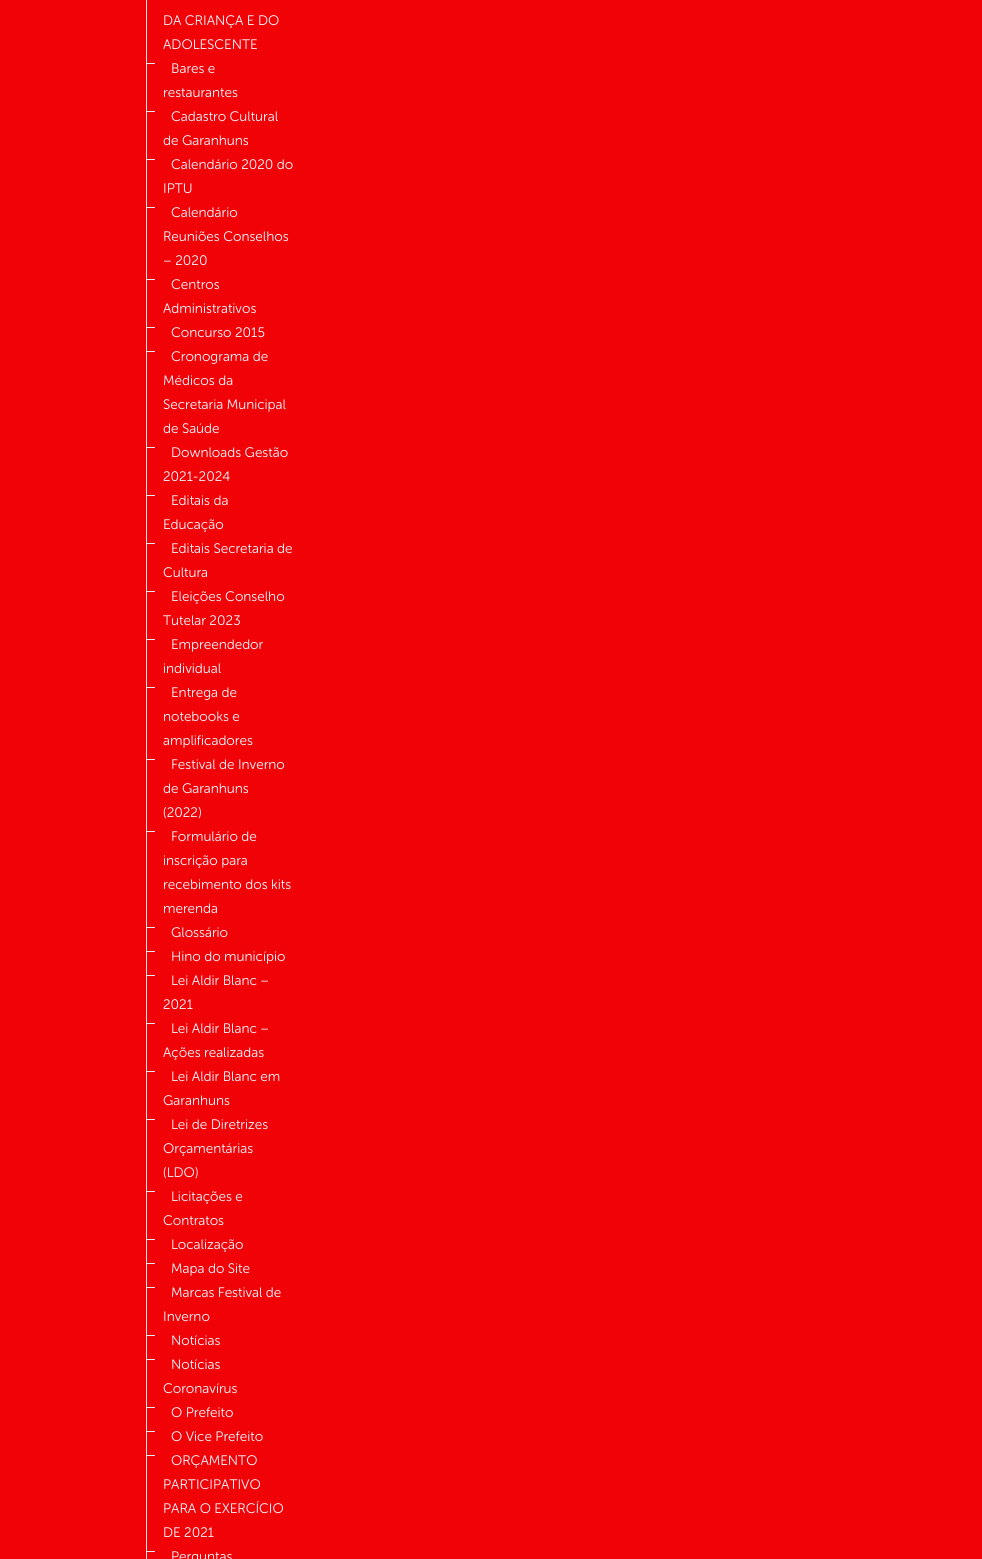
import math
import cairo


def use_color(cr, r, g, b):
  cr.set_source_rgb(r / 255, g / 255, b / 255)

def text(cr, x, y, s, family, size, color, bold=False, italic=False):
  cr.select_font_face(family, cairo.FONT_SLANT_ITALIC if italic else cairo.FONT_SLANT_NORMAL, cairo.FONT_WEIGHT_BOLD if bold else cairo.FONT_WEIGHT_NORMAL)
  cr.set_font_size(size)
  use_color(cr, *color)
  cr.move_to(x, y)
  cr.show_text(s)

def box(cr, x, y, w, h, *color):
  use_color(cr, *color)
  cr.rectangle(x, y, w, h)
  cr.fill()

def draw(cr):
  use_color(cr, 240, 2, 6)
  cr.paint()
  box(cr, 146, 0, 1, 1559, 232, 232, 232)
  box(cr, 147, 63, 8, 1, 232, 232, 232)
  box(cr, 147, 111, 8, 1, 232, 232, 232)
  box(cr, 147, 159, 8, 1, 232, 232, 232)
  box(cr, 147, 207, 8, 1, 232, 232, 232)
  box(cr, 147, 279, 8, 1, 232, 232, 232)
  box(cr, 147, 327, 8, 1, 232, 232, 232)
  box(cr, 147, 351, 8, 1, 232, 232, 232)
  box(cr, 147, 447, 8, 1, 232, 232, 232)
  box(cr, 147, 495, 8, 1, 232, 232, 232)
  box(cr, 147, 543, 8, 1, 232, 232, 232)
  box(cr, 147, 591, 8, 1, 232, 232, 232)
  box(cr, 147, 639, 8, 1, 232, 232, 232)
  box(cr, 147, 687, 8, 1, 232, 232, 232)
  box(cr, 147, 759, 8, 1, 232, 232, 232)
  box(cr, 147, 831, 8, 1, 232, 232, 232)
  box(cr, 147, 927, 8, 1, 232, 232, 232)
  box(cr, 147, 951, 8, 1, 232, 232, 232)
  box(cr, 147, 975, 8, 1, 232, 232, 232)
  box(cr, 147, 1023, 8, 1, 232, 232, 232)
  box(cr, 147, 1071, 8, 1, 232, 232, 232)
  box(cr, 147, 1119, 8, 1, 232, 232, 232)
  box(cr, 147, 1191, 8, 1, 232, 232, 232)
  box(cr, 147, 1239, 8, 1, 232, 232, 232)
  box(cr, 147, 1263, 8, 1, 232, 232, 232)
  box(cr, 147, 1287, 8, 1, 232, 232, 232)
  box(cr, 147, 1335, 8, 1, 232, 232, 232)
  box(cr, 147, 1359, 8, 1, 232, 232, 232)
  box(cr, 147, 1407, 8, 1, 232, 232, 232)
  box(cr, 147, 1431, 8, 1, 232, 232, 232)
  box(cr, 147, 1455, 8, 1, 232, 232, 232)
  box(cr, 147, 1551, 8, 1, 232, 232, 232)
  text(cr, 163, 25, "DA CRIANÇA E DO", "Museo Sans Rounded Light", 13.75, (249, 249, 255))
  text(cr, 163, 49, "ADOLESCENTE", "Museo Sans Rounded Light", 13.75, (249, 249, 255))
  text(cr, 171, 73, "Bares e", "Museo Sans Rounded Light", 13.75, (249, 249, 255))
  text(cr, 163, 97, "restaurantes", "Museo Sans Rounded Light", 13.75, (249, 249, 255))
  text(cr, 171, 121, "Cadastro Cultural", "Museo Sans Rounded Light", 13.75, (249, 249, 255))
  text(cr, 163, 145, "de Garanhuns", "Museo Sans Rounded Light", 13.75, (249, 249, 255))
  text(cr, 171, 169, "Calendário 2020 do", "Museo Sans Rounded Light", 13.75, (249, 249, 255))
  text(cr, 163, 193, "IPTU", "Museo Sans Rounded Light", 13.75, (249, 249, 255))
  text(cr, 171, 217, "Calendário", "Museo Sans Rounded Light", 13.75, (249, 249, 255))
  text(cr, 163, 241, "Reuniões Conselhos", "Museo Sans Rounded Light", 13.75, (249, 249, 255))
  text(cr, 163, 265, "– 2020", "Museo Sans Rounded Light", 13.75, (249, 249, 255))
  text(cr, 171, 289, "Centros", "Museo Sans Rounded Light", 13.75, (249, 249, 255))
  text(cr, 163, 313, "Administrativos", "Museo Sans Rounded Light", 13.75, (249, 249, 255))
  text(cr, 171, 337, "Concurso 2015", "Museo Sans Rounded Light", 13.75, (249, 249, 255))
  text(cr, 171, 361, "Cronograma de", "Museo Sans Rounded Light", 13.75, (249, 249, 255))
  text(cr, 163, 385, "Médicos da", "Museo Sans Rounded Light", 13.75, (249, 249, 255))
  text(cr, 163, 409, "Secretaria Municipal", "Museo Sans Rounded Light", 13.75, (249, 249, 255))
  text(cr, 163, 433, "de Saúde", "Museo Sans Rounded Light", 13.75, (249, 249, 255))
  text(cr, 171, 457, "Downloads Gestão", "Museo Sans Rounded Light", 13.75, (249, 249, 255))
  text(cr, 163, 481, "2021-2024", "Museo Sans Rounded Light", 13.75, (249, 249, 255))
  text(cr, 171, 505, "Editais da", "Museo Sans Rounded Light", 13.75, (249, 249, 255))
  text(cr, 163, 529, "Educação", "Museo Sans Rounded Light", 13.75, (249, 249, 255))
  text(cr, 171, 553, "Editais Secretaria de", "Museo Sans Rounded Light", 13.75, (249, 249, 255))
  text(cr, 163, 577, "Cultura", "Museo Sans Rounded Light", 13.75, (249, 249, 255))
  text(cr, 171, 601, "Eleições Conselho", "Museo Sans Rounded Light", 13.75, (249, 249, 255))
  text(cr, 163, 625, "Tutelar 2023", "Museo Sans Rounded Light", 13.75, (249, 249, 255))
  text(cr, 171, 649, "Empreendedor", "Museo Sans Rounded Light", 13.75, (249, 249, 255))
  text(cr, 163, 673, "individual", "Museo Sans Rounded Light", 13.75, (249, 249, 255))
  text(cr, 171, 697, "Entrega de", "Museo Sans Rounded Light", 13.75, (249, 249, 255))
  text(cr, 163, 721, "notebooks e", "Museo Sans Rounded Light", 13.75, (249, 249, 255))
  text(cr, 163, 745, "amplificadores", "Museo Sans Rounded Light", 13.75, (249, 249, 255))
  text(cr, 171, 769, "Festival de Inverno", "Museo Sans Rounded Light", 13.75, (249, 249, 255))
  text(cr, 163, 793, "de Garanhuns", "Museo Sans Rounded Light", 13.75, (249, 249, 255))
  text(cr, 163, 817, "(2022)", "Museo Sans Rounded Light", 13.75, (249, 249, 255))
  text(cr, 171, 841, "Formulário de", "Museo Sans Rounded Light", 13.75, (249, 249, 255))
  text(cr, 163, 865, "inscrição para", "Museo Sans Rounded Light", 13.75, (249, 249, 255))
  text(cr, 163, 889, "recebimento dos kits", "Museo Sans Rounded Light", 13.75, (249, 249, 255))
  text(cr, 163, 913, "merenda", "Museo Sans Rounded Light", 13.75, (249, 249, 255))
  text(cr, 171, 937, "Glossário", "Museo Sans Rounded Light", 13.75, (249, 249, 255))
  text(cr, 171, 961, "Hino do município", "Museo Sans Rounded Light", 13.75, (249, 249, 255))
  text(cr, 171, 985, "Lei Aldir Blanc –", "Museo Sans Rounded Light", 13.75, (249, 249, 255))
  text(cr, 163, 1009, "2021", "Museo Sans Rounded Light", 13.75, (249, 249, 255))
  text(cr, 171, 1033, "Lei Aldir Blanc –", "Museo Sans Rounded Light", 13.75, (249, 249, 255))
  text(cr, 163, 1057, "Ações realizadas", "Museo Sans Rounded Light", 13.75, (249, 249, 255))
  text(cr, 171, 1081, "Lei Aldir Blanc em", "Museo Sans Rounded Light", 13.75, (249, 249, 255))
  text(cr, 163, 1105, "Garanhuns", "Museo Sans Rounded Light", 13.75, (249, 249, 255))
  text(cr, 171, 1129, "Lei de Diretrizes", "Museo Sans Rounded Light", 13.75, (249, 249, 255))
  text(cr, 163, 1153, "Orçamentárias", "Museo Sans Rounded Light", 13.75, (249, 249, 255))
  text(cr, 163, 1177, "(LDO)", "Museo Sans Rounded Light", 13.75, (249, 249, 255))
  text(cr, 171, 1201, "Licitações e", "Museo Sans Rounded Light", 13.75, (249, 249, 255))
  text(cr, 163, 1225, "Contratos", "Museo Sans Rounded Light", 13.75, (249, 249, 255))
  text(cr, 171, 1249, "Localização", "Museo Sans Rounded Light", 13.75, (249, 249, 255))
  text(cr, 171, 1273, "Mapa do Site", "Museo Sans Rounded Light", 13.75, (249, 249, 255))
  text(cr, 171, 1297, "Marcas Festival de", "Museo Sans Rounded Light", 13.75, (249, 249, 255))
  text(cr, 163, 1321, "Inverno", "Museo Sans Rounded Light", 13.75, (249, 249, 255))
  text(cr, 171, 1345, "Notícias", "Museo Sans Rounded Light", 13.75, (249, 249, 255))
  text(cr, 171, 1369, "Notícias", "Museo Sans Rounded Light", 13.75, (249, 249, 255))
  text(cr, 163, 1393, "Coronavírus", "Museo Sans Rounded Light", 13.75, (249, 249, 255))
  text(cr, 171, 1417, "O Prefeito", "Museo Sans Rounded Light", 13.75, (249, 249, 255))
  text(cr, 171, 1441, "O Vice Prefeito", "Museo Sans Rounded Light", 13.75, (249, 249, 255))
  text(cr, 171, 1465, "ORÇAMENTO", "Museo Sans Rounded Light", 13.75, (249, 249, 255))
  text(cr, 163, 1489, "PARTICIPATIVO", "Museo Sans Rounded Light", 13.75, (249, 249, 255))
  text(cr, 163, 1513, "PARA O EXERCÍCIO", "Museo Sans Rounded Light", 13.75, (249, 249, 255))
  text(cr, 163, 1537, "DE 2021", "Museo Sans Rounded Light", 13.75, (249, 249, 255))
  text(cr, 171, 1561, "Perguntas", "Museo Sans Rounded Light", 13.75, (249, 249, 255))


surface = cairo.ImageSurface(cairo.FORMAT_RGB24, 982, 1559)
cr = cairo.Context(surface)
options = cairo.FontOptions()
options.set_hint_metrics(cairo.HINT_METRICS_OFF)
options.set_hint_style(cairo.HINT_STYLE_NONE)
cr.set_font_options(options)
cr.set_miter_limit(4)
draw(cr)
surface.write_to_png("out.png")
